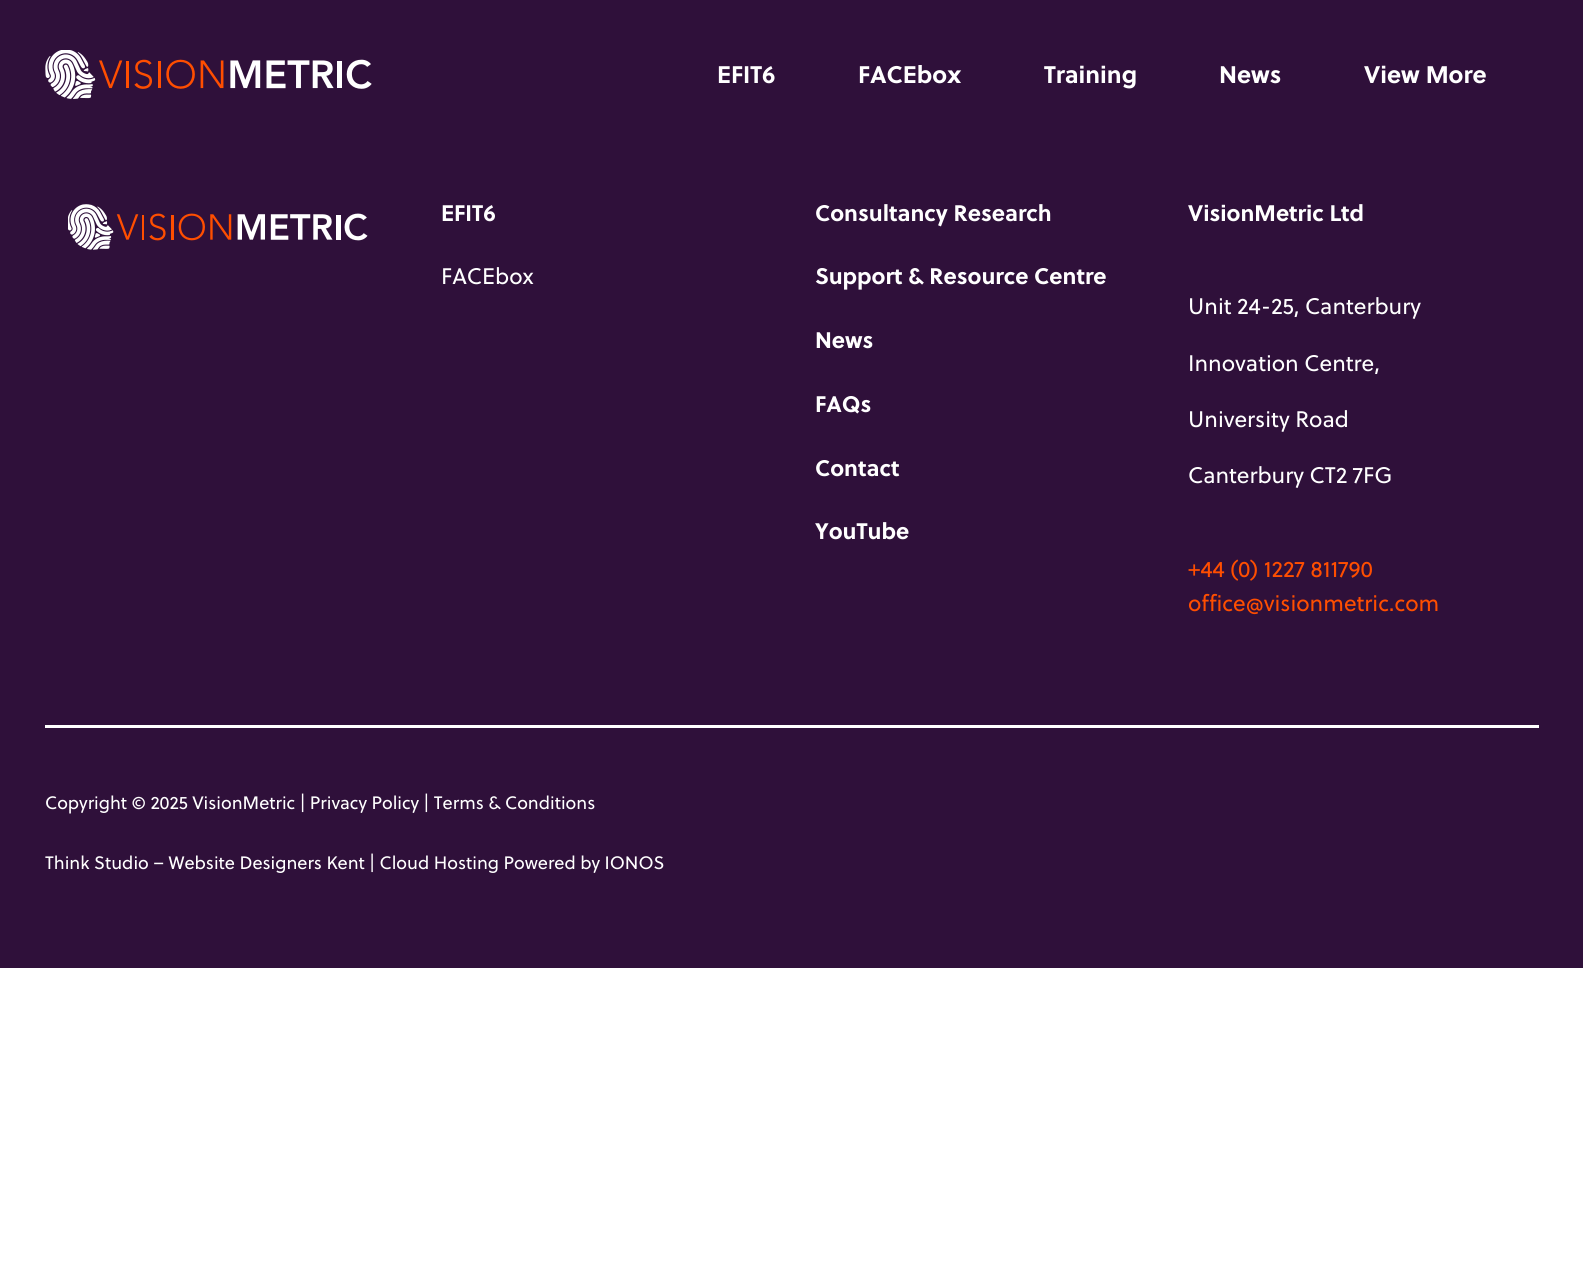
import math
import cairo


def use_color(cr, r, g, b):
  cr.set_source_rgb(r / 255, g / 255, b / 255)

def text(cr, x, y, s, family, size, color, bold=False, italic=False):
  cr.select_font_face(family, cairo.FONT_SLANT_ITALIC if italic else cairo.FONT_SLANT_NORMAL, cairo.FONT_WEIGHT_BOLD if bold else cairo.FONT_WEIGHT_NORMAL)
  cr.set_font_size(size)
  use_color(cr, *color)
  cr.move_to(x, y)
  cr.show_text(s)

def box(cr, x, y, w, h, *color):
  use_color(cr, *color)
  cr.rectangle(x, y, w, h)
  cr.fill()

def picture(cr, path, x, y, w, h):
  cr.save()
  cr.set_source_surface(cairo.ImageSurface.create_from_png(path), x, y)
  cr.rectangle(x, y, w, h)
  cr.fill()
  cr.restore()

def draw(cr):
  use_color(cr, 255, 255, 255)
  cr.paint()
  box(cr, 0, 0, 1583, 968, 47, 16, 58)
  picture(cr, "img_01.png", 45, 50, 327, 49)
  box(cr, 45, 725, 1494, 3, 255, 255, 255)
  picture(cr, "img_02.png", 68, 204, 300, 46)
  text(cr, 717, 83, "EFIT6", "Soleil", 24, (255, 255, 255), bold=True)
  text(cr, 858, 83, "FACEbox", "Soleil", 24, (255, 255, 255), bold=True)
  text(cr, 1044, 83, "Training", "Soleil", 24, (255, 255, 255), bold=True)
  text(cr, 1219, 83, "News", "Soleil", 24, (255, 255, 255), bold=True)
  text(cr, 1364, 83, "View More", "Soleil", 24, (255, 255, 255), bold=True)
  text(cr, 441, 221, "EFIT6", "Soleil", 22.5, (255, 255, 255), bold=True)
  text(cr, 441, 284, "FACEbox", "Soleil", 22.5, (255, 255, 255))
  text(cr, 815, 221, "Consultancy Research", "Soleil", 22.5, (255, 255, 255), bold=True)
  text(cr, 815, 284, "Support & Resource Centre", "Soleil", 22.5, (255, 255, 255), bold=True)
  text(cr, 815, 348, "News", "Soleil", 22.5, (255, 255, 255), bold=True)
  text(cr, 815, 412, "FAQs", "Soleil", 22.5, (255, 255, 255), bold=True)
  text(cr, 815, 476, "Contact", "Soleil", 22.5, (255, 255, 255), bold=True)
  text(cr, 815, 539, "YouTube", "Soleil", 22.5, (255, 255, 255), bold=True)
  text(cr, 1188, 221, "VisionMetric Ltd", "Soleil", 22.5, (255, 255, 255), bold=True)
  text(cr, 1188, 314, "Unit 24-25, Canterbury", "Soleil", 22.5, (255, 255, 255))
  text(cr, 1188, 371, "Innovation Centre,", "Soleil", 22.5, (255, 255, 255))
  text(cr, 1188, 427, "University Road", "Soleil", 22.5, (255, 255, 255))
  text(cr, 1188, 483, "Canterbury CT2 7FG", "Soleil", 22.5, (255, 255, 255))
  text(cr, 1188, 577, "+44 (0) 1227 811790", "Soleil", 22.5, (255, 78, 0))
  text(cr, 1188, 611, "office@visionmetric.com", "Soleil", 22.5, (255, 78, 0))
  text(cr, 45, 809, "Copyright © 2025 VisionMetric | Privacy Policy | Terms & Conditions", "Soleil", 18, (255, 255, 255))
  text(cr, 45, 869, "Think Studio – Website Designers Kent | Cloud Hosting Powered by IONOS", "Soleil", 18, (255, 255, 255))


surface = cairo.ImageSurface(cairo.FORMAT_RGB24, 1583, 1282)
cr = cairo.Context(surface)
options = cairo.FontOptions()
options.set_hint_metrics(cairo.HINT_METRICS_OFF)
options.set_hint_style(cairo.HINT_STYLE_NONE)
cr.set_font_options(options)
cr.set_miter_limit(4)
draw(cr)
surface.write_to_png("out.png")
